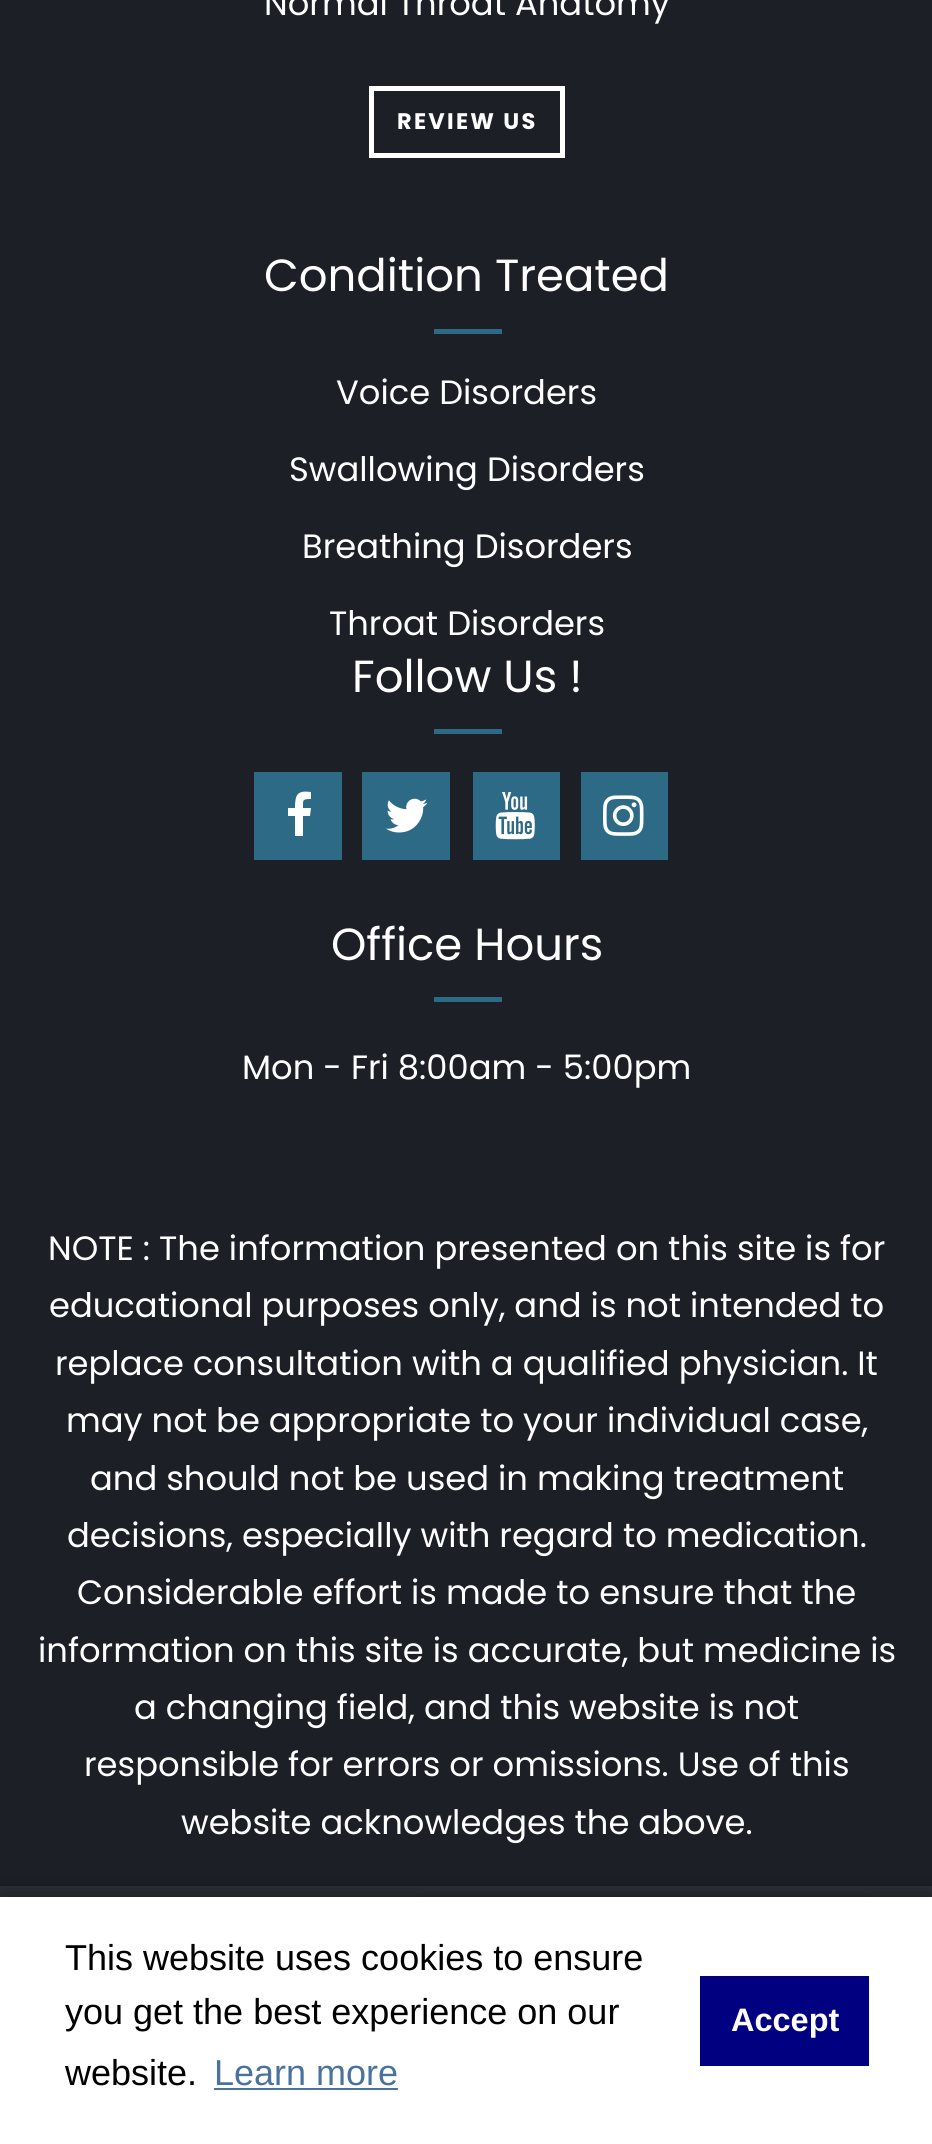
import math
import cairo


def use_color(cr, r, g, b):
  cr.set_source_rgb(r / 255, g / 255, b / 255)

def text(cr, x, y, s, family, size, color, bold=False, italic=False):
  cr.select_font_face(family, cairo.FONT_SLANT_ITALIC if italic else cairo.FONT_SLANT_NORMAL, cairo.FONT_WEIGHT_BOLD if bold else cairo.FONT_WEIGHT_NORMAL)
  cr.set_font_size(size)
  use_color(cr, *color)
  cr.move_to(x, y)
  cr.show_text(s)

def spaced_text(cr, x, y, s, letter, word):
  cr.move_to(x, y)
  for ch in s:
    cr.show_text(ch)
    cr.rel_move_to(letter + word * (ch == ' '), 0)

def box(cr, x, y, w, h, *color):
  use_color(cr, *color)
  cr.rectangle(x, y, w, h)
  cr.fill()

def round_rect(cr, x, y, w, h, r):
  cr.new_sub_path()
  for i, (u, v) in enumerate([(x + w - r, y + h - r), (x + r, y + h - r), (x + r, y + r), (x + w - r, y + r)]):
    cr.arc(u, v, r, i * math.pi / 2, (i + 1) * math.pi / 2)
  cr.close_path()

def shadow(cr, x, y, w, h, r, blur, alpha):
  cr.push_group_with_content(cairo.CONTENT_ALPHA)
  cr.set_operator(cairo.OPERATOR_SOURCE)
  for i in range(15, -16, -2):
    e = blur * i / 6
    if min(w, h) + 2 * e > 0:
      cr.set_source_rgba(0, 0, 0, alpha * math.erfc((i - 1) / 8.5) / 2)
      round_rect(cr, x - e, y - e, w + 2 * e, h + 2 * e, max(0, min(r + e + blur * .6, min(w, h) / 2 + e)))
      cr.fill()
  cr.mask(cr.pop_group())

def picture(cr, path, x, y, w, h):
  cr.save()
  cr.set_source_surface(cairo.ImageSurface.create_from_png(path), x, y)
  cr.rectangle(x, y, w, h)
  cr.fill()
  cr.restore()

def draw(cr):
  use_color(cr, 29, 31, 39)
  cr.paint()
  cr.rectangle(371.5, 88.5, 191, 67)
  use_color(cr, 255, 255, 255)
  cr.set_line_width(5)
  cr.stroke()
  box(cr, 434, 329, 68, 5, 45, 106, 134)
  box(cr, 434, 729, 68, 5, 45, 106, 134)
  box(cr, 254, 772, 88, 88, 45, 106, 134)
  use_color(cr, 255, 255, 255)
  cr.new_path()
  cr.move_to(311, 792)
  cr.line_to(311, 799)
  cr.curve_to(302, 799, 303, 800, 303, 808)
  cr.line_to(311, 808)
  cr.line_to(310, 816)
  cr.line_to(303, 816)
  cr.line_to(303, 836)
  cr.line_to(295, 836)
  cr.line_to(295, 816)
  cr.line_to(288, 816)
  cr.line_to(288, 808)
  cr.line_to(295, 808)
  cr.curve_to(295, 795, 297, 790, 311, 792)
  cr.close_path()
  cr.fill()
  box(cr, 362, 772, 88, 88, 45, 106, 134)
  picture(cr, "img_01.png", 386, 798, 42, 35)
  box(cr, 473, 772, 87, 88, 45, 106, 134)
  picture(cr, "img_02.png", 495, 792, 40, 48)
  box(cr, 581, 772, 87, 88, 45, 106, 134)
  picture(cr, "img_03.png", 603, 795, 41, 41)
  box(cr, 434, 997, 68, 5, 45, 106, 134)
  box(cr, 0, 1886, 932, 11, 46, 48, 55)
  use_color(cr, 0, 0, 0)
  shadow(cr, 421, 1901, 445, 180, 5, 5.5, 0.26)
  shadow(cr, 0, 1897, 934, 247, 0, 11, 0.5)
  box(cr, 0, 1897, 932, 247, 255, 255, 255)
  box(cr, 214, 2088, 184, 2, 73, 115, 156)
  box(cr, 700, 1976, 169, 90, 0, 0, 128)
  text(cr, 264, 15, "Normal Throat Anatomy", "Poppins", 33.75, (255, 255, 255))
  cr.select_font_face("Poppins", cairo.FONT_SLANT_NORMAL, cairo.FONT_WEIGHT_BOLD)
  cr.set_font_size(22.5)
  spaced_text(cr, 397, 129, "REVIEW US", 2.25, 0)
  text(cr, 264, 291, "Condition Treated", "Poppins", 45, (255, 255, 255))
  text(cr, 336, 404, "Voice Disorders", "Poppins", 33.75, (255, 255, 255))
  text(cr, 289, 481, "Swallowing Disorders", "Poppins", 33.75, (255, 255, 255))
  text(cr, 302, 558, "Breathing Disorders", "Poppins", 33.75, (255, 255, 255))
  text(cr, 329, 635, "Throat Disorders", "Poppins", 33.75, (255, 255, 255))
  text(cr, 352, 692, "Follow Us !", "Poppins", 45, (255, 255, 255))
  text(cr, 331, 960, "Office Hours", "Poppins", 45, (255, 255, 255))
  text(cr, 242, 1079, "Mon - Fri 8:00am - 5:00pm", "Poppins", 33.75, (255, 255, 255))
  text(cr, 48, 1260, "NOTE : The information presented on this site is for", "Poppins", 33.75, (255, 255, 255))
  text(cr, 49, 1317, "educational purposes only, and is not intended to", "Poppins", 33.75, (255, 255, 255))
  text(cr, 55, 1375, "replace consultation with a qualified physician. It", "Poppins", 33.75, (255, 255, 255))
  text(cr, 66, 1432, "may not be appropriate to your individual case,", "Poppins", 33.75, (255, 255, 255))
  text(cr, 90, 1490, "and should not be used in making treatment", "Poppins", 33.75, (255, 255, 255))
  text(cr, 67, 1547, "decisions, especially with regard to medication.", "Poppins", 33.75, (255, 255, 255))
  text(cr, 77, 1604, "Considerable effort is made to ensure that the", "Poppins", 33.75, (255, 255, 255))
  text(cr, 38, 1662, "information on this site is accurate, but medicine is", "Poppins", 33.75, (255, 255, 255))
  text(cr, 134, 1719, "a changing field, and this website is not", "Poppins", 33.75, (255, 255, 255))
  text(cr, 84, 1776, "responsible for errors or omissions. Use of this", "Poppins", 33.75, (255, 255, 255))
  text(cr, 181, 1834, "website acknowledges the above.", "Poppins", 33.75, (255, 255, 255))
  text(cr, 65, 1970, "This website uses cookies to ensure", "Liberation Sans", 36, (0, 0, 0))
  text(cr, 65, 2024, "you get the best experience on our", "Liberation Sans", 36, (0, 0, 0))
  text(cr, 65, 2085, "website.", "Liberation Sans", 36, (0, 0, 0))
  text(cr, 214, 2085, "Learn more", "Liberation Sans", 36, (73, 115, 156))
  text(cr, 731, 2031, "Accept", "Liberation Sans", 32.5, (255, 255, 255), bold=True)


surface = cairo.ImageSurface(cairo.FORMAT_RGB24, 932, 2144)
cr = cairo.Context(surface)
options = cairo.FontOptions()
options.set_hint_metrics(cairo.HINT_METRICS_OFF)
options.set_hint_style(cairo.HINT_STYLE_NONE)
cr.set_font_options(options)
cr.set_miter_limit(4)
draw(cr)
surface.write_to_png("out.png")
